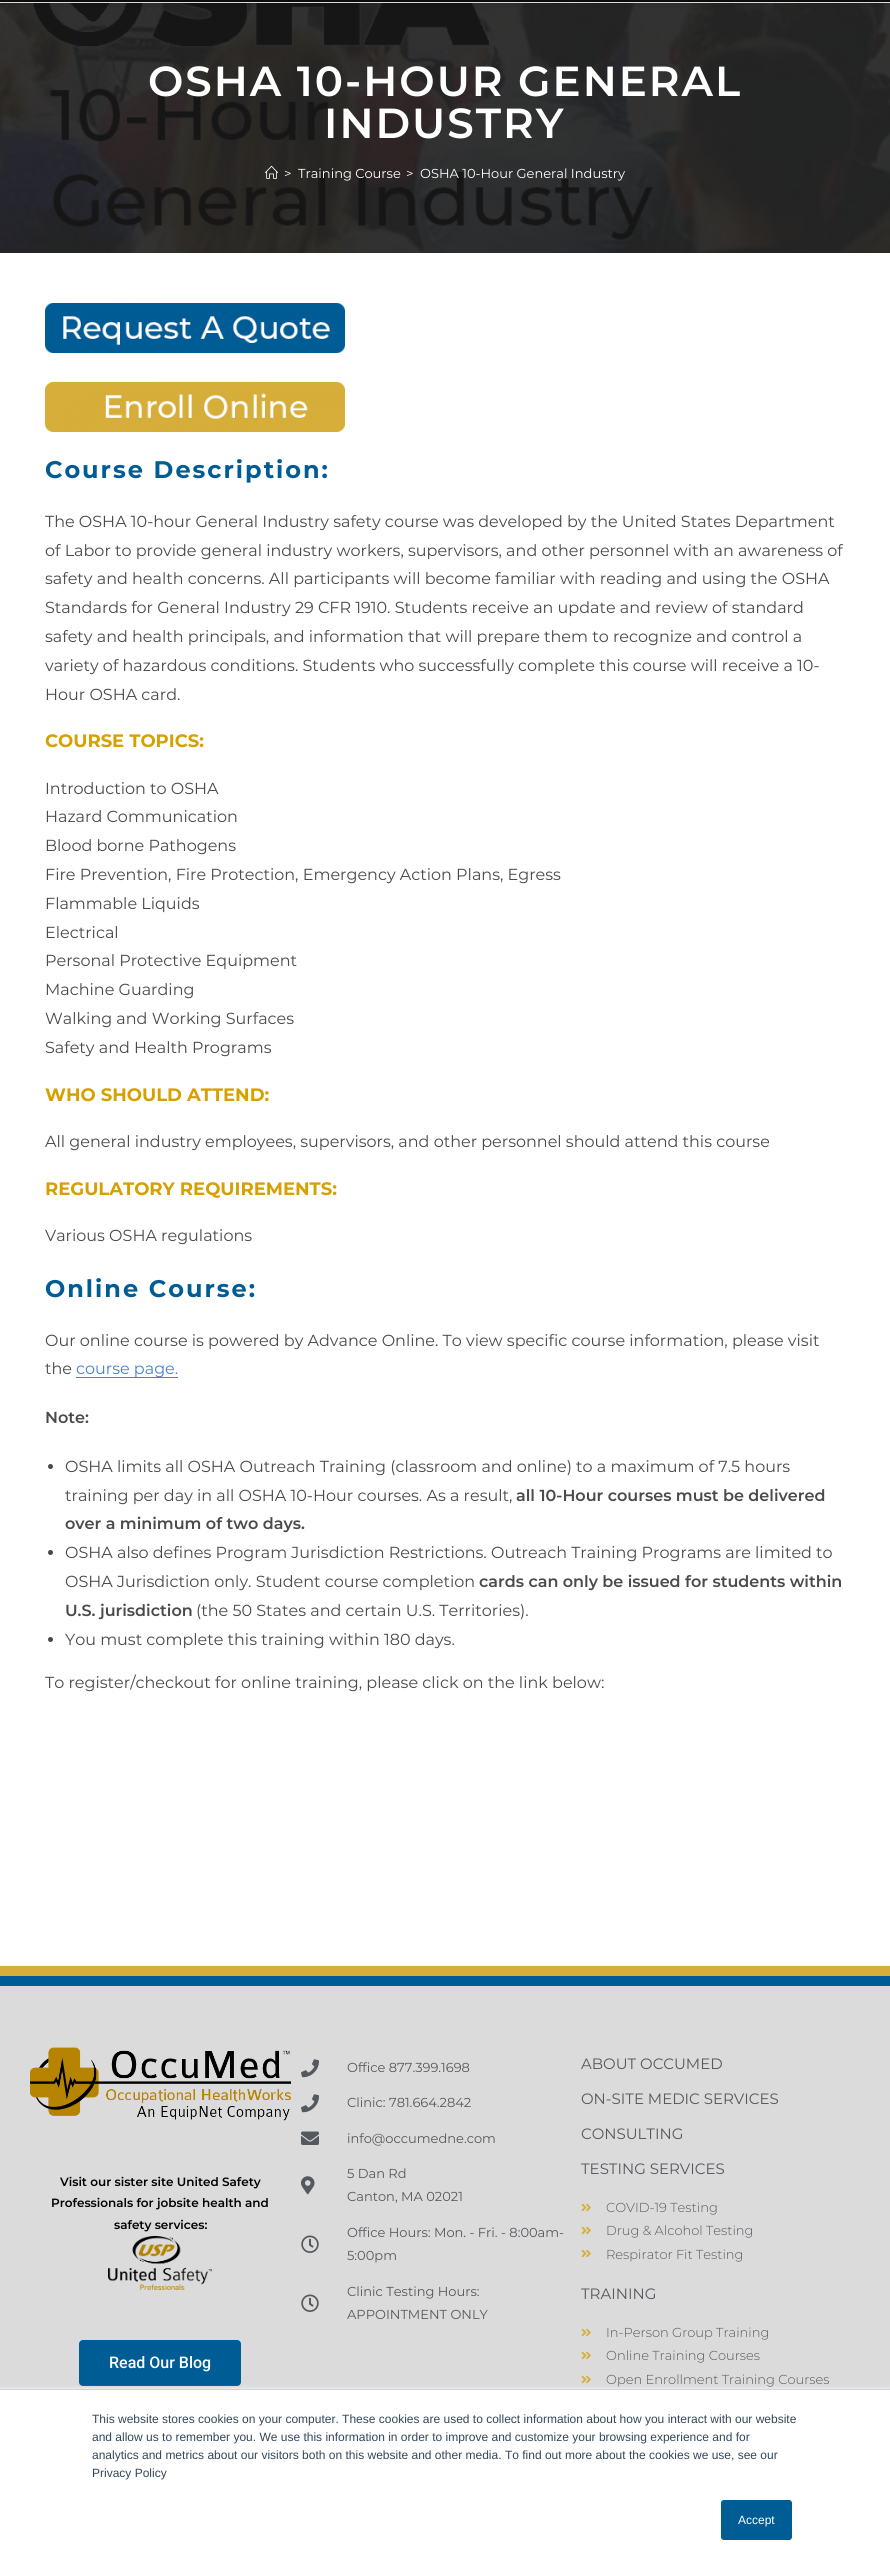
import math
import cairo


def use_color(cr, r, g, b):
  cr.set_source_rgb(r / 255, g / 255, b / 255)

def text(cr, x, y, s, family, size, color, bold=False, italic=False):
  cr.select_font_face(family, cairo.FONT_SLANT_ITALIC if italic else cairo.FONT_SLANT_NORMAL, cairo.FONT_WEIGHT_BOLD if bold else cairo.FONT_WEIGHT_NORMAL)
  cr.set_font_size(size)
  use_color(cr, *color)
  cr.move_to(x, y)
  cr.show_text(s)

def spaced_text(cr, x, y, s, letter, word):
  cr.move_to(x, y)
  for ch in s:
    cr.show_text(ch)
    cr.rel_move_to(letter + word * (ch == ' '), 0)

def box(cr, x, y, w, h, *color):
  use_color(cr, *color)
  cr.rectangle(x, y, w, h)
  cr.fill()

def round_rect(cr, x, y, w, h, r):
  cr.new_sub_path()
  for i, (u, v) in enumerate([(x + w - r, y + h - r), (x + r, y + h - r), (x + r, y + r), (x + w - r, y + r)]):
    cr.arc(u, v, r, i * math.pi / 2, (i + 1) * math.pi / 2)
  cr.close_path()

def shadow(cr, x, y, w, h, r, blur, alpha):
  cr.push_group_with_content(cairo.CONTENT_ALPHA)
  cr.set_operator(cairo.OPERATOR_SOURCE)
  for i in range(15, -16, -2):
    e = blur * i / 6
    if min(w, h) + 2 * e > 0:
      cr.set_source_rgba(0, 0, 0, alpha * math.erfc((i - 1) / 8.5) / 2)
      round_rect(cr, x - e, y - e, w + 2 * e, h + 2 * e, max(0, min(r + e + blur * .6, min(w, h) / 2 + e)))
      cr.fill()
  cr.mask(cr.pop_group())

def picture(cr, path, x, y, w, h):
  cr.save()
  cr.set_source_surface(cairo.ImageSurface.create_from_png(path), x, y)
  cr.rectangle(x, y, w, h)
  cr.fill()
  cr.restore()

def draw(cr):
  use_color(cr, 255, 255, 255)
  cr.paint()
  box(cr, 0, 2, 890, 1, 241, 241, 241)
  picture(cr, "img_01.png", 0, 3, 890, 250)
  use_color(cr, 0, 0, 0)
  shadow(cr, 0, -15, 890, 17, 0, 5, 0.2)
  box(cr, 0, 0, 890, 2, 12, 12, 12)
  picture(cr, "img_02.png", 265, 165, 13, 14)
  picture(cr, "img_03.png", 45, 303, 300, 50)
  picture(cr, "img_04.png", 45, 382, 300, 50)
  box(cr, 76, 1377, 102, 1, 71, 130, 211)
  use_color(cr, 74, 74, 74)
  cr.arc(50.5, 1466.5, 2.5, 0, 2 * math.pi)
  cr.fill()
  cr.arc(50.5, 1552.5, 2.5, 0, 2 * math.pi)
  cr.fill()
  cr.arc(50.5, 1639.5, 2.5, 0, 2 * math.pi)
  cr.fill()
  box(cr, 0, 1966, 890, 10, 214, 174, 57)
  box(cr, 0, 1976, 890, 10, 0, 92, 149)
  box(cr, 0, 1986, 890, 403, 219, 219, 219)
  picture(cr, "img_05.png", 30, 2047, 261, 74)
  picture(cr, "img_06.png", 108, 2236, 104, 54)
  use_color(cr, 0, 92, 149)
  round_rect(cr, 79, 2340, 162, 46, 4)
  cr.fill()
  picture(cr, "img_07.png", 301, 2059, 18, 19)
  picture(cr, "img_07.png", 301, 2094, 18, 19)
  picture(cr, "img_08.png", 301, 2131, 18, 14)
  picture(cr, "img_09.png", 301, 2176, 14, 19)
  picture(cr, "img_10.png", 301, 2235, 18, 18)
  picture(cr, "img_10.png", 301, 2294, 18, 18)
  picture(cr, "img_11.png", 581, 2203, 10, 9)
  picture(cr, "img_11.png", 581, 2226, 10, 9)
  picture(cr, "img_11.png", 581, 2249, 10, 9)
  picture(cr, "img_11.png", 581, 2328, 10, 9)
  picture(cr, "img_11.png", 581, 2351, 10, 9)
  picture(cr, "img_11.png", 581, 2375, 10, 9)
  use_color(cr, 234, 240, 246)
  shadow(cr, 0, 2388, 890, 177, 0, 1.5, 1)
  box(cr, 0, 2390, 890, 176, 255, 255, 255)
  box(cr, 0, 2389, 890, 1, 203, 214, 226)
  use_color(cr, 0, 92, 149)
  round_rect(cr, 721.5, 2500.5, 70, 39, 2.5)
  cr.fill_preserve()
  cr.set_line_width(1)
  cr.stroke()
  cr.select_font_face("Montserrat SemiBold")
  cr.set_font_size(42)
  use_color(cr, 255, 255, 255)
  spaced_text(cr, 148, 96, "OSHA 10-HOUR GENERAL", 2, 0)
  spaced_text(cr, 324, 138, "INDUSTRY", 2, 0)
  text(cr, 284, 178, ">", "Montserrat", 13, (255, 255, 255))
  text(cr, 298, 178, "Training Course", "Montserrat", 13, (255, 255, 255))
  text(cr, 406, 178, ">", "Montserrat", 13, (255, 255, 255))
  text(cr, 420, 178, "OSHA 10-Hour General Industry", "Montserrat", 13, (255, 255, 255))
  cr.select_font_face("Montserrat", cairo.FONT_SLANT_NORMAL, cairo.FONT_WEIGHT_BOLD)
  cr.set_font_size(24)
  use_color(cr, 0, 92, 149)
  spaced_text(cr, 45, 478, "Course Description:", 2, 0)
  text(cr, 45, 527, "The OSHA 10-hour General Industry safety course was developed by the United States Department", "Montserrat", 16, (74, 74, 74))
  text(cr, 45, 556, "of Labor to provide general industry workers, supervisors, and other personnel with an awareness of", "Montserrat", 16, (74, 74, 74))
  text(cr, 45, 584, "safety and health concerns. All participants will become familiar with reading and using the OSHA", "Montserrat", 16, (74, 74, 74))
  text(cr, 45, 613, "Standards for General Industry 29 CFR 1910. Students receive an update and review of standard", "Montserrat", 16, (74, 74, 74))
  text(cr, 45, 642, "safety and health principals, and information that will prepare them to recognize and control a", "Montserrat", 16, (74, 74, 74))
  text(cr, 45, 671, "variety of hazardous conditions. Students who successfully complete this course will receive a 10-", "Montserrat", 16, (74, 74, 74))
  text(cr, 45, 700, "Hour OSHA card.", "Montserrat", 16, (74, 74, 74))
  text(cr, 45, 747, "COURSE TOPICS:", "Montserrat", 18, (214, 160, 0), bold=True)
  text(cr, 45, 794, "Introduction to OSHA", "Montserrat", 16, (74, 74, 74))
  text(cr, 45, 822, "Hazard Communication", "Montserrat", 16, (74, 74, 74))
  text(cr, 45, 851, "Blood borne Pathogens", "Montserrat", 16, (74, 74, 74))
  text(cr, 45, 880, "Fire Prevention, Fire Protection, Emergency Action Plans, Egress", "Montserrat", 16, (74, 74, 74))
  text(cr, 45, 909, "Flammable Liquids", "Montserrat", 16, (74, 74, 74))
  text(cr, 45, 938, "Electrical", "Montserrat", 16, (74, 74, 74))
  text(cr, 45, 966, "Personal Protective Equipment", "Montserrat", 16, (74, 74, 74))
  text(cr, 45, 995, "Machine Guarding", "Montserrat", 16, (74, 74, 74))
  text(cr, 45, 1024, "Walking and Working Surfaces", "Montserrat", 16, (74, 74, 74))
  text(cr, 45, 1053, "Safety and Health Programs", "Montserrat", 16, (74, 74, 74))
  text(cr, 45, 1101, "WHO SHOULD ATTEND:", "Montserrat", 18, (214, 160, 0), bold=True)
  text(cr, 45, 1147, "All general industry employees, supervisors, and other personnel should attend this course", "Montserrat", 16, (74, 74, 74))
  text(cr, 45, 1195, "REGULATORY REQUIREMENTS:", "Montserrat", 18, (214, 160, 0), bold=True)
  text(cr, 45, 1241, "Various OSHA regulations", "Montserrat", 16, (74, 74, 74))
  cr.select_font_face("Montserrat", cairo.FONT_SLANT_NORMAL, cairo.FONT_WEIGHT_BOLD)
  cr.set_font_size(24)
  use_color(cr, 0, 92, 149)
  spaced_text(cr, 45, 1297, "Online Course:", 2, 0)
  text(cr, 45, 1346, "Our online course is powered by Advance Online. To view specific course information, please visit", "Montserrat", 16, (74, 74, 74))
  text(cr, 45, 1374, "the", "Montserrat", 16, (74, 74, 74))
  text(cr, 76, 1374, "course page.", "Montserrat", 16, (71, 130, 211))
  text(cr, 45, 1423, "Note:", "Montserrat SemiBold", 16, (74, 74, 74))
  text(cr, 65, 1472, "OSHA limits all OSHA Outreach Training (classroom and online) to a maximum of 7.5 hours", "Montserrat", 16, (74, 74, 74))
  text(cr, 65, 1501, "training per day in all OSHA 10-Hour courses. As a result,", "Montserrat", 16, (74, 74, 74))
  text(cr, 516, 1501, "all 10-Hour courses must be delivered", "Montserrat SemiBold", 16, (74, 74, 74))
  text(cr, 65, 1529, "over a minimum of two days.", "Montserrat SemiBold", 16, (74, 74, 74))
  text(cr, 65, 1558, "OSHA also defines Program Jurisdiction Restrictions. Outreach Training Programs are limited to", "Montserrat", 16, (74, 74, 74))
  text(cr, 65, 1587, "OSHA Jurisdiction only. Student course completion", "Montserrat", 16, (74, 74, 74))
  text(cr, 479, 1587, "cards can only be issued for students within", "Montserrat SemiBold", 16, (74, 74, 74))
  text(cr, 65, 1616, "U.S. jurisdiction", "Montserrat SemiBold", 16, (74, 74, 74))
  text(cr, 196, 1616, "(the 50 States and certain U.S. Territories).", "Montserrat", 16, (74, 74, 74))
  text(cr, 65, 1645, "You must complete this training within 180 days.", "Montserrat", 16, (74, 74, 74))
  text(cr, 45, 1688, "To register/checkout for online training, please click on the link below:", "Montserrat", 16, (74, 74, 74))
  text(cr, 60, 2186, "Visit our sister site United Safety", "Montserrat SemiBold", 12, (0, 0, 0))
  text(cr, 51, 2207, "Professionals for jobsite health and", "Montserrat SemiBold", 12, (0, 0, 0))
  text(cr, 114, 2229, "safety services:", "Montserrat SemiBold", 12, (0, 0, 0))
  text(cr, 109, 2368, "Read Our Blog", "Roboto Medium", 16, (255, 255, 255))
  text(cr, 347, 2072, "Office 877.399.1698", "Montserrat", 13, (84, 89, 95))
  text(cr, 347, 2107, "Clinic: 781.664.2842", "Montserrat", 13, (84, 89, 95))
  text(cr, 347, 2143, "info@occumedne.com", "Montserrat", 13, (84, 89, 95))
  text(cr, 347, 2178, "5 Dan Rd", "Montserrat", 13, (84, 89, 95))
  text(cr, 347, 2201, "Canton, MA 02021", "Montserrat", 13, (84, 89, 95))
  text(cr, 347, 2237, "Office Hours: Mon. - Fri. - 8:00am-", "Montserrat", 13, (84, 89, 95))
  text(cr, 347, 2260, "5:00pm", "Montserrat", 13, (84, 89, 95))
  text(cr, 347, 2296, "Clinic Testing Hours:", "Montserrat", 13, (84, 89, 95))
  text(cr, 347, 2319, "APPOINTMENT ONLY", "Montserrat", 13, (84, 89, 95))
  text(cr, 581, 2069, "ABOUT OCCUMED", "Montserrat", 15, (84, 89, 95))
  text(cr, 581, 2104, "ON-SITE MEDIC SERVICES", "Montserrat", 15, (84, 89, 95))
  text(cr, 581, 2139, "CONSULTING", "Montserrat", 15, (84, 89, 95))
  text(cr, 581, 2174, "TESTING SERVICES", "Montserrat", 15, (84, 89, 95))
  text(cr, 606, 2212, "COVID-19 Testing", "Montserrat Light", 13, (84, 89, 95))
  text(cr, 606, 2235, "Drug & Alcohol Testing", "Montserrat Light", 13, (84, 89, 95))
  text(cr, 606, 2259, "Respirator Fit Testing", "Montserrat Light", 13, (84, 89, 95))
  text(cr, 581, 2299, "TRAINING", "Montserrat", 15, (84, 89, 95))
  text(cr, 606, 2337, "In-Person Group Training", "Montserrat Light", 13, (84, 89, 95))
  text(cr, 606, 2360, "Online Training Courses", "Montserrat Light", 13, (84, 89, 95))
  text(cr, 606, 2384, "Open Enrollment Training Courses", "Montserrat Light", 13, (84, 89, 95))
  text(cr, 92, 2423, "This website stores cookies on your computer. These cookies are used to collect information about how you interact with our website", "Liberation Sans", 12, (51, 71, 91))
  text(cr, 92, 2441, "and allow us to remember you. We use this information in order to improve and customize your browsing experience and for", "Liberation Sans", 12, (51, 71, 91))
  text(cr, 92, 2459, "analytics and metrics about our visitors both on this website and other media. To find out more about the cookies we use, see our", "Liberation Sans", 12, (51, 71, 91))
  text(cr, 92, 2477, "Privacy Policy", "Liberation Sans", 12, (51, 71, 91))
  text(cr, 738, 2524, "Accept", "Liberation Sans", 12, (255, 255, 255))


surface = cairo.ImageSurface(cairo.FORMAT_RGB24, 890, 2566)
cr = cairo.Context(surface)
options = cairo.FontOptions()
options.set_hint_metrics(cairo.HINT_METRICS_OFF)
options.set_hint_style(cairo.HINT_STYLE_NONE)
cr.set_font_options(options)
cr.set_miter_limit(4)
draw(cr)
surface.write_to_png("out.png")
